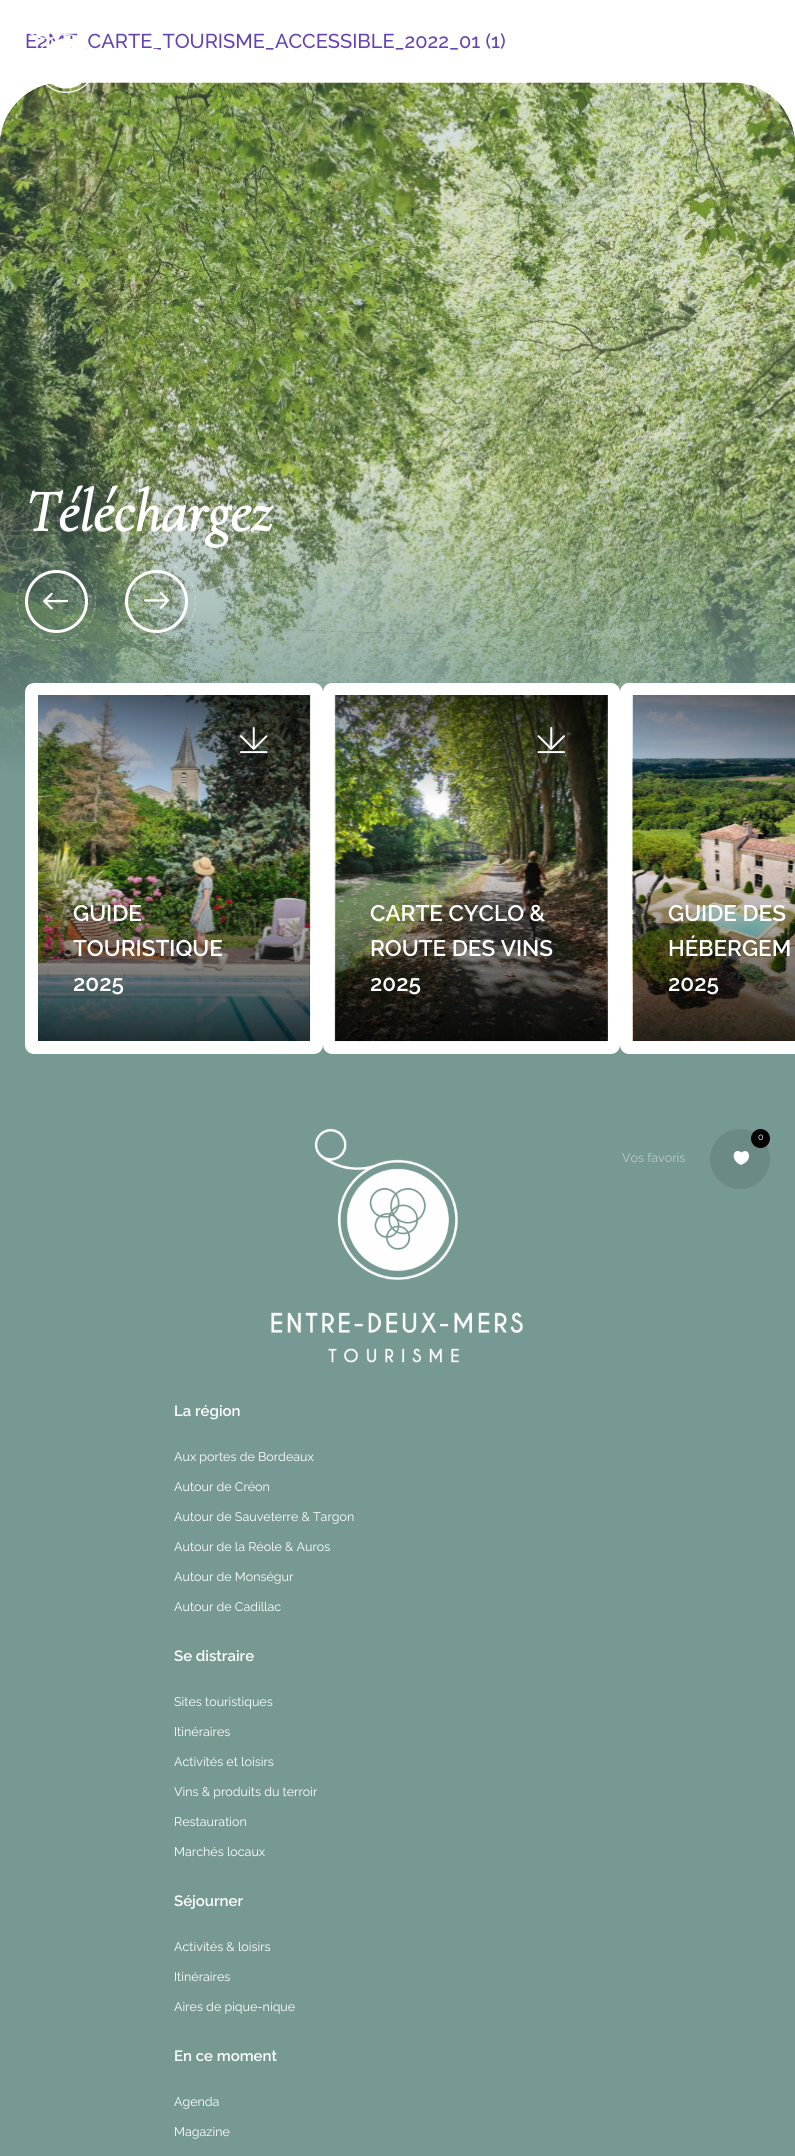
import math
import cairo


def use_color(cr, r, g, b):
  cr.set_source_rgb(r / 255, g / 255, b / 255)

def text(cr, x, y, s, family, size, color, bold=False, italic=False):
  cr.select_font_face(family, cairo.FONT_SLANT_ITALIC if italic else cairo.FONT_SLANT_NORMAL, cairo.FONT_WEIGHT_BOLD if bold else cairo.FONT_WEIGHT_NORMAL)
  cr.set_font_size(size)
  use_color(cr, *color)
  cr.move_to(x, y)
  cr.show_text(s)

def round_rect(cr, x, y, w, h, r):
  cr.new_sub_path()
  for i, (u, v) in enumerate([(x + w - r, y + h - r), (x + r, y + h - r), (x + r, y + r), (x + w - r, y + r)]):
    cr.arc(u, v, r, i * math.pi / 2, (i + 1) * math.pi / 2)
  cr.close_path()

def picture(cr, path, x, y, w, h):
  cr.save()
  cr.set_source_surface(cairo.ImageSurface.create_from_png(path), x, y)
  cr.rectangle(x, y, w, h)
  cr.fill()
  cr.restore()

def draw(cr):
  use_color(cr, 255, 255, 255)
  cr.paint()
  use_color(cr, 119, 153, 148)
  cr.new_path()
  cr.move_to(63, 83)
  cr.line_to(732, 83)
  cr.curve_to(767, 83, 795, 111, 795, 146)
  cr.line_to(795, 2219)
  cr.line_to(0, 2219)
  cr.line_to(0, 146)
  cr.curve_to(0, 111, 28, 83, 63, 83)
  cr.close_path()
  cr.fill()
  picture(cr, "img_02.png", 0, 82, 795, 694)
  gradient = cairo.LinearGradient(397, 82, 398, 1104)
  gradient.add_color_stop_rgba(0.39, 0.467, 0.6, 0.58, 0)
  gradient.add_color_stop_rgba(0.68, 0.467, 0.6, 0.58, 1)
  cr.set_source(gradient)
  cr.rectangle(0, 487, 795, 289)
  cr.fill()
  cr.set_source_rgba(0.467, 0.6, 0.58, 0.3)
  cr.new_path()
  cr.move_to(63, 83)
  cr.line_to(732, 83)
  cr.curve_to(767, 83, 795, 111, 795, 146)
  cr.line_to(795, 1104)
  cr.line_to(0, 1104)
  cr.line_to(0, 146)
  cr.curve_to(0, 111, 28, 83, 63, 83)
  cr.close_path()
  cr.fill()
  cr.arc(56.5, 601.5, 30, 0, 2 * math.pi)
  use_color(cr, 255, 255, 255)
  cr.set_line_width(3)
  cr.stroke()
  cr.new_path()
  cr.move_to(56, 562)
  cr.curve_to(78, 562, 95.5, 579.5, 95.5, 601)
  cr.curve_to(95.5, 623, 78, 640.5, 56, 640.5)
  cr.curve_to(34.5, 640.5, 17, 623, 17, 601)
  cr.curve_to(17, 579.5, 34.5, 562, 56, 562)
  cr.close_path()
  cr.set_source_rgba(1, 1, 1, 0.3)
  cr.set_line_width(1.2)
  cr.set_dash([3.75, 2.5])
  cr.stroke()
  picture(cr, "img_03.png", 43, 592, 26, 18)
  cr.arc(156.5, 601.5, 30, 0, 2 * math.pi)
  use_color(cr, 255, 255, 255)
  cr.set_line_width(3)
  cr.set_dash([])
  cr.stroke()
  cr.new_path()
  cr.move_to(156, 562)
  cr.curve_to(178, 562, 195.5, 579.5, 195.5, 601)
  cr.curve_to(195.5, 623, 178, 640.5, 156, 640.5)
  cr.curve_to(134.5, 640.5, 117, 623, 117, 601)
  cr.curve_to(117, 579.5, 134.5, 562, 156, 562)
  cr.close_path()
  cr.set_source_rgba(1, 1, 1, 0.3)
  cr.set_line_width(1.2)
  cr.set_dash([3.75, 2.5])
  cr.stroke()
  picture(cr, "img_04.png", 144, 592, 26, 17)
  round_rect(cr, 31.5, 689.5, 285, 358, 2.5)
  use_color(cr, 255, 255, 255)
  cr.set_line_width(13)
  cr.set_dash([])
  cr.stroke()
  picture(cr, "img_05.png", 38, 695, 273, 347)
  gradient = cairo.LinearGradient(136, 1060, 211, 676)
  gradient.add_color_stop_rgba(0.65, 0, 0, 0, 0)
  gradient.add_color_stop_rgba(0.98, 0, 0, 0, 0.7)
  cr.set_source(gradient)
  cr.rectangle(38, 695, 272, 134)
  cr.fill()
  gradient = cairo.LinearGradient(174, 695, 174, 1041)
  gradient.add_color_stop_rgba(0.46, 0, 0, 0, 0)
  gradient.add_color_stop_rgba(1, 0, 0, 0, 0.79)
  cr.set_source(gradient)
  cr.rectangle(38, 859, 272, 182)
  cr.fill()
  picture(cr, "img_06.png", 240, 727, 28, 27)
  round_rect(cr, 329.5, 689.5, 284, 358, 2.5)
  use_color(cr, 255, 255, 255)
  cr.stroke()
  picture(cr, "img_07.png", 334, 695, 274, 347)
  gradient = cairo.LinearGradient(434, 1060, 509, 676)
  gradient.add_color_stop_rgba(0.65, 0, 0, 0, 0)
  gradient.add_color_stop_rgba(0.98, 0, 0, 0, 0.7)
  cr.set_source(gradient)
  cr.rectangle(335, 695, 273, 136)
  cr.fill()
  gradient = cairo.LinearGradient(471, 695, 471, 1041)
  gradient.add_color_stop_rgba(0.46, 0, 0, 0, 0)
  gradient.add_color_stop_rgba(1, 0, 0, 0, 0.79)
  cr.set_source(gradient)
  cr.rectangle(335, 859, 273, 182)
  cr.fill()
  picture(cr, "img_08.png", 537, 727, 28, 27)
  use_color(cr, 255, 255, 255)
  cr.new_path()
  cr.move_to(629, 683)
  cr.curve_to(624, 683, 620, 687, 620, 692)
  cr.line_to(620, 1045)
  cr.curve_to(620, 1050, 624, 1054, 629, 1054)
  cr.line_to(795, 1054)
  cr.line_to(795, 1041)
  cr.line_to(633, 1041)
  cr.line_to(633, 696)
  cr.line_to(795, 696)
  cr.line_to(795, 683)
  cr.close_path()
  cr.fill()
  picture(cr, "img_09.png", 632, 695, 163, 347)
  picture(cr, "img_10.png", 271, 1128, 252, 235)
  use_color(cr, 107, 138, 133)
  cr.arc(740, 1159, 30, 0, 2 * math.pi)
  cr.fill()
  use_color(cr, 0, 0, 0)
  cr.arc(760.5, 1138.5, 9.5, 0, 2 * math.pi)
  cr.fill()
  use_color(cr, 255, 255, 255)
  cr.new_path()
  cr.move_to(741, 1165)
  cr.line_to(744, 1163.5)
  cr.curve_to(753, 1158.5, 748.5, 1147, 741.5, 1152.5)
  cr.curve_to(733.5, 1146.5, 729, 1160, 741, 1165)
  cr.close_path()
  cr.fill()
  text(cr, 25, 48, "E2MT_CARTE_TOURISME_ACCESSIBLE_2022_01 (1)", "Raleway Medium", 20, (101, 65, 179))
  picture(cr, "img_01.png", 29, 33, 129, 60)
  text(cr, 25, 531, "Téléchargez", "Cormorant", 60, (255, 255, 255), bold=True, italic=True)
  text(cr, 73, 921, "GUIDE", "Raleway SemiBold", 22.5, (255, 255, 255))
  text(cr, 73, 956, "TOURISTIQUE", "Raleway SemiBold", 22.5, (255, 255, 255))
  text(cr, 73, 991, "2025", "Raleway SemiBold", 22.5, (255, 255, 255))
  text(cr, 370, 921, "CARTE CYCLO &", "Raleway SemiBold", 22.5, (255, 255, 255))
  text(cr, 370, 956, "ROUTE DES VINS", "Raleway SemiBold", 22.5, (255, 255, 255))
  text(cr, 370, 991, "2025", "Raleway SemiBold", 22.5, (255, 255, 255))
  text(cr, 668, 921, "GUIDE DES", "Raleway SemiBold", 22.5, (255, 255, 255))
  text(cr, 668, 956, "HÉBERGEM", "Raleway SemiBold", 22.5, (255, 255, 255))
  text(cr, 668, 991, "2025", "Raleway SemiBold", 22.5, (255, 255, 255))
  text(cr, 758, 1140, "0", "Raleway", 9, (255, 255, 255))
  text(cr, 622, 1162, "Vos favoris", "Raleway", 12.5, (185, 203, 200))
  text(cr, 174, 1416, "La région", "Raleway SemiBold", 15, (255, 255, 255))
  text(cr, 174, 1461, "Aux portes de Bordeaux", "Raleway", 12.5, (255, 255, 255))
  text(cr, 174, 1491, "Autour de Créon", "Raleway", 12.5, (255, 255, 255))
  text(cr, 174, 1521, "Autour de Sauveterre & Targon", "Raleway", 12.5, (255, 255, 255))
  text(cr, 174, 1551, "Autour de la Réole & Auros", "Raleway", 12.5, (255, 255, 255))
  text(cr, 174, 1581, "Autour de Monségur", "Raleway", 12.5, (255, 255, 255))
  text(cr, 174, 1611, "Autour de Cadillac", "Raleway", 12.5, (255, 255, 255))
  text(cr, 174, 1661, "Se distraire", "Raleway SemiBold", 15, (255, 255, 255))
  text(cr, 174, 1706, "Sites touristiques", "Raleway", 12.5, (255, 255, 255))
  text(cr, 174, 1736, "Itinéraires", "Raleway", 12.5, (255, 255, 255))
  text(cr, 174, 1766, "Activités et loisirs", "Raleway", 12.5, (255, 255, 255))
  text(cr, 174, 1796, "Vins & produits du terroir", "Raleway", 12.5, (255, 255, 255))
  text(cr, 174, 1826, "Restauration", "Raleway", 12.5, (255, 255, 255))
  text(cr, 174, 1856, "Marchés locaux", "Raleway", 12.5, (255, 255, 255))
  text(cr, 174, 1906, "Séjourner", "Raleway SemiBold", 15, (255, 255, 255))
  text(cr, 174, 1951, "Activités & loisirs", "Raleway", 12.5, (255, 255, 255))
  text(cr, 174, 1981, "Itinéraires", "Raleway", 12.5, (255, 255, 255))
  text(cr, 174, 2011, "Aires de pique-nique", "Raleway", 12.5, (255, 255, 255))
  text(cr, 174, 2061, "En ce moment", "Raleway SemiBold", 15, (255, 255, 255))
  text(cr, 174, 2106, "Agenda", "Raleway", 12.5, (255, 255, 255))
  text(cr, 174, 2136, "Magazine", "Raleway", 12.5, (255, 255, 255))


surface = cairo.ImageSurface(cairo.FORMAT_RGB24, 795, 2156)
cr = cairo.Context(surface)
options = cairo.FontOptions()
options.set_hint_metrics(cairo.HINT_METRICS_OFF)
options.set_hint_style(cairo.HINT_STYLE_NONE)
cr.set_font_options(options)
cr.set_miter_limit(4)
draw(cr)
surface.write_to_png("out.png")
